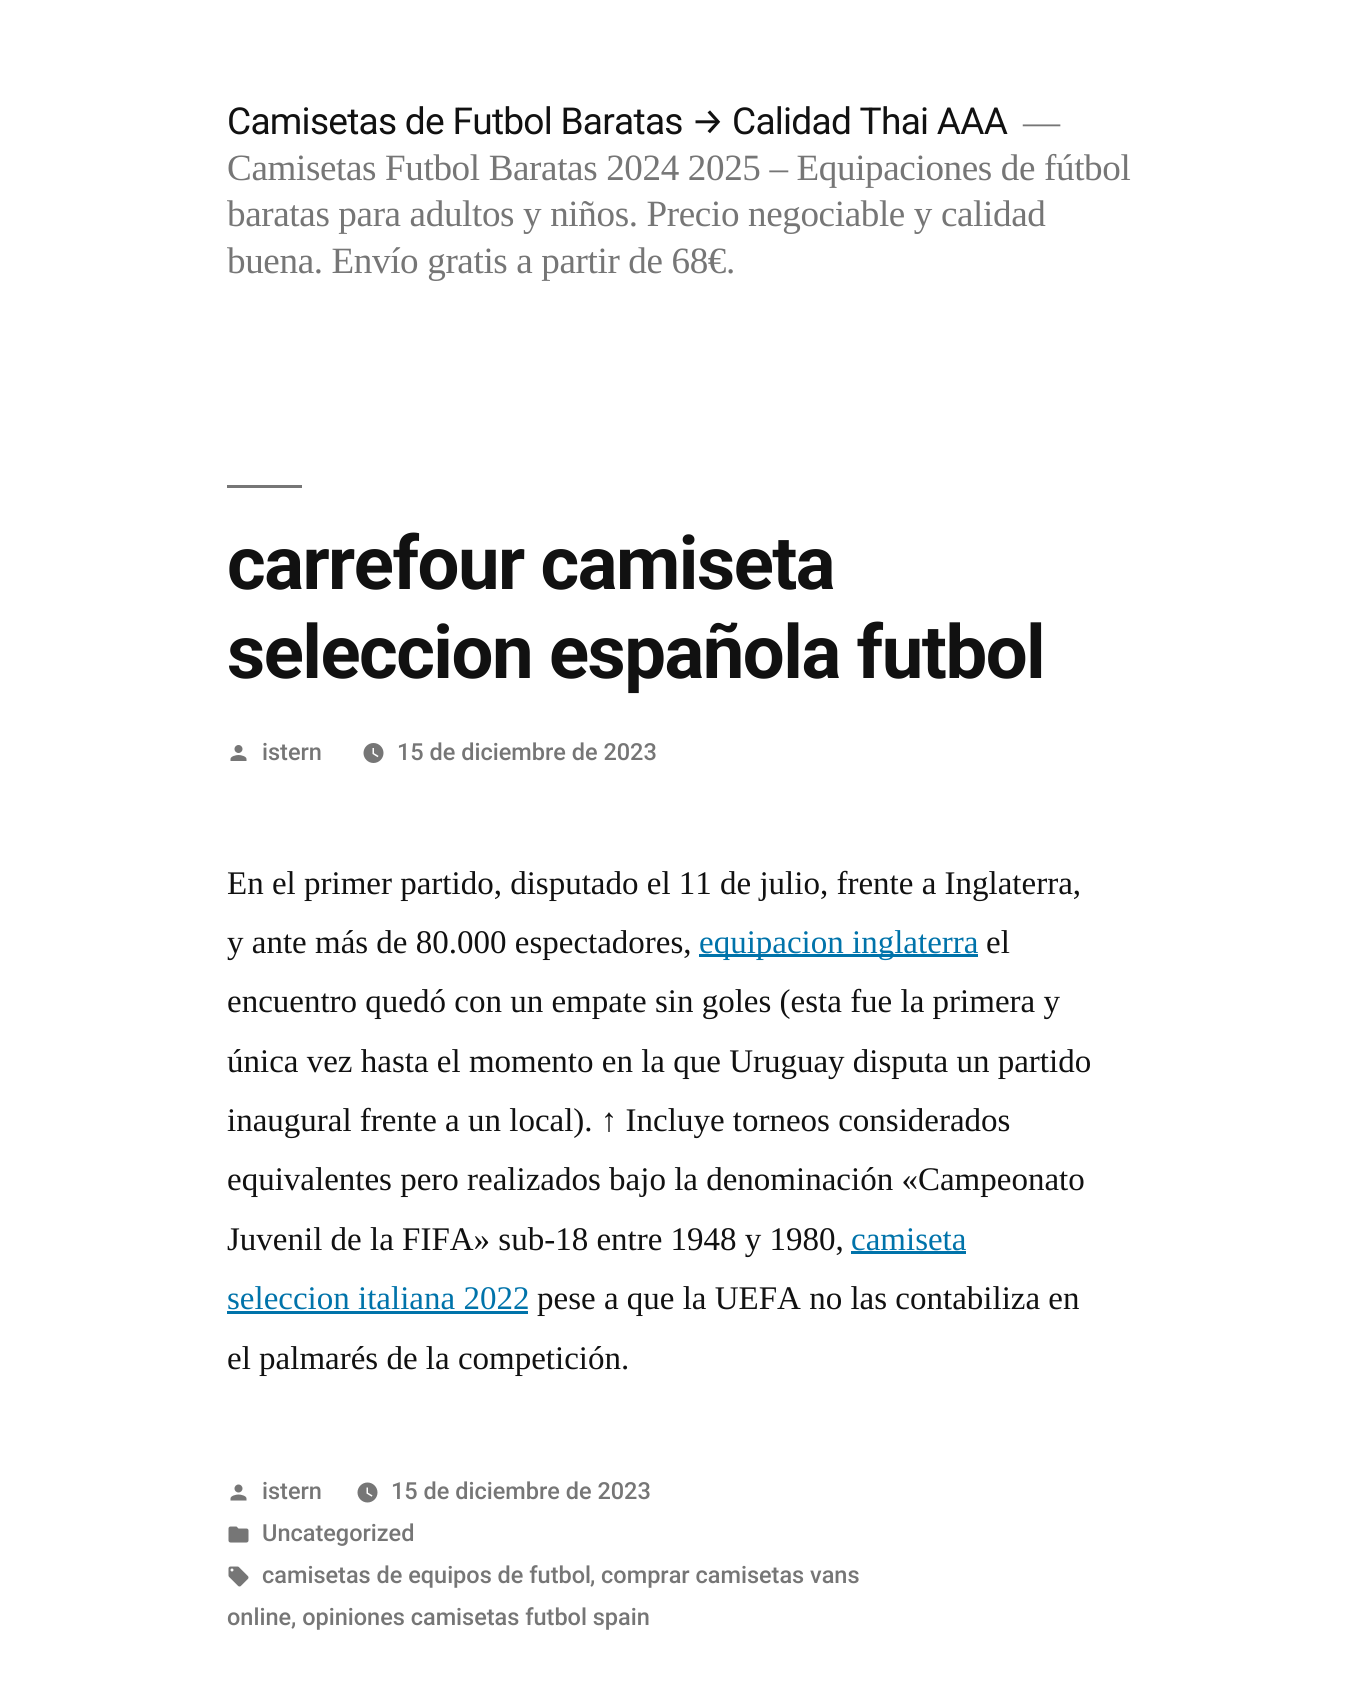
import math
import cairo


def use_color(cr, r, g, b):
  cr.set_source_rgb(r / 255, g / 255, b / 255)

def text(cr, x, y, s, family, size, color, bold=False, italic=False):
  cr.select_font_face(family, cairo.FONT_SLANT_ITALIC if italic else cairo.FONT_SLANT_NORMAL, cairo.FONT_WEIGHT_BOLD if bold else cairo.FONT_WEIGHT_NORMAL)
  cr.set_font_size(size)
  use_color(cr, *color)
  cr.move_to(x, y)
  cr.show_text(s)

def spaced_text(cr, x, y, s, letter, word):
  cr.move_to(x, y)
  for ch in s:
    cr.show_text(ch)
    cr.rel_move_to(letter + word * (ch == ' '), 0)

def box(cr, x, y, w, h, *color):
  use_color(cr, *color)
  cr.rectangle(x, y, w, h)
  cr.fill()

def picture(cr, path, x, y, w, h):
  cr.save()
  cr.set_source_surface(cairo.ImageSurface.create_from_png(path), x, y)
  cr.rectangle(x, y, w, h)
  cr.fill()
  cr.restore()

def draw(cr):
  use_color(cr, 255, 255, 255)
  cr.paint()
  box(cr, 227, 485, 75, 3, 118, 118, 118)
  picture(cr, "img_01.png", 230, 745, 17, 16)
  picture(cr, "img_02.png", 363, 743, 21, 20)
  box(cr, 699, 954, 279, 3, 0, 115, 170)
  box(cr, 851, 1251, 115, 3, 0, 115, 170)
  box(cr, 227, 1311, 301, 3, 0, 115, 170)
  picture(cr, "img_03.png", 230, 1484, 17, 17)
  picture(cr, "img_04.png", 357, 1482, 21, 21)
  picture(cr, "img_05.png", 228, 1526, 21, 17)
  picture(cr, "img_06.png", 228, 1566, 21, 21)
  cr.select_font_face("Roboto")
  cr.set_font_size(37.1)
  use_color(cr, 17, 17, 17)
  spaced_text(cr, 227, 134, "Camisetas de Futbol Baratas", -0.75, 0)
  cr.select_font_face("Fira Sans")
  spaced_text(cr, 691, 134, "→", -0.75, 0)
  cr.select_font_face("Roboto")
  spaced_text(cr, 732, 134, "Calidad Thai AAA", -0.75, 0)
  cr.select_font_face("Liberation Serif")
  use_color(cr, 118, 118, 118)
  spaced_text(cr, 1023, 134, "—", -0.37, 0)
  spaced_text(cr, 227, 180, "Camisetas Futbol Baratas 2024 2025 – Equipaciones de fútbol", -0.37, 0)
  spaced_text(cr, 227, 226, "baratas para adultos y niños. Precio negociable y calidad", -0.37, 0)
  spaced_text(cr, 227, 273, "buena. Envío gratis a partir de 68€.", -0.37, 0)
  cr.select_font_face("Roboto", cairo.FONT_SLANT_NORMAL, cairo.FONT_WEIGHT_BOLD)
  cr.set_font_size(74.25)
  use_color(cr, 17, 17, 17)
  spaced_text(cr, 227, 589, "carrefour camiseta", -1.5, 0)
  spaced_text(cr, 227, 678, "seleccion española futbol", -1.5, 0)
  text(cr, 262, 760, "istern", "Roboto Medium", 23.5, (118, 118, 118))
  text(cr, 397, 760, "15 de diciembre de 2023", "Roboto Medium", 23.5, (118, 118, 118))
  text(cr, 227, 894, "En el primer partido, disputado el 11 de julio, frente a Inglaterra,", "Liberation Serif", 33, (17, 17, 17))
  text(cr, 227, 953, "y ante más de 80.000 espectadores,", "Liberation Serif", 33, (17, 17, 17))
  text(cr, 699, 953, "equipacion inglaterra", "Liberation Serif", 33, (0, 115, 170))
  text(cr, 986, 953, "el", "Liberation Serif", 33, (17, 17, 17))
  text(cr, 227, 1012, "encuentro quedó con un empate sin goles (esta fue la primera y", "Liberation Serif", 33, (17, 17, 17))
  text(cr, 227, 1072, "única vez hasta el momento en la que Uruguay disputa un partido", "Liberation Serif", 33, (17, 17, 17))
  text(cr, 227, 1131, "inaugural frente a un local). ↑ Incluye torneos considerados", "Liberation Serif", 33, (17, 17, 17))
  text(cr, 227, 1190, "equivalentes pero realizados bajo la denominación «Campeonato", "Liberation Serif", 33, (17, 17, 17))
  text(cr, 227, 1250, "Juvenil de la FIFA» sub-18 entre 1948 y 1980,", "Liberation Serif", 33, (17, 17, 17))
  text(cr, 851, 1250, "camiseta", "Liberation Serif", 33, (0, 115, 170))
  text(cr, 227, 1309, "seleccion italiana 2022", "Liberation Serif", 33, (0, 115, 170))
  text(cr, 537, 1309, "pese a que la UEFA no las contabiliza en", "Liberation Serif", 33, (17, 17, 17))
  text(cr, 227, 1369, "el palmarés de la competición.", "Liberation Serif", 33, (17, 17, 17))
  text(cr, 262, 1499, "istern", "Roboto Medium", 23.5, (118, 118, 118))
  text(cr, 391, 1499, "15 de diciembre de 2023", "Roboto Medium", 23.5, (118, 118, 118))
  text(cr, 262, 1541, "Uncategorized", "Roboto Medium", 23.5, (118, 118, 118))
  text(cr, 262, 1583, "camisetas de equipos de futbol", "Roboto Medium", 23.5, (118, 118, 118))
  text(cr, 590, 1583, ", comprar camisetas vans", "Roboto Medium", 23.5, (118, 118, 118))
  text(cr, 227, 1625, "online, opiniones camisetas futbol spain", "Roboto Medium", 23.5, (118, 118, 118))


surface = cairo.ImageSurface(cairo.FORMAT_RGB24, 1365, 1700)
cr = cairo.Context(surface)
options = cairo.FontOptions()
options.set_hint_metrics(cairo.HINT_METRICS_OFF)
options.set_hint_style(cairo.HINT_STYLE_NONE)
cr.set_font_options(options)
cr.set_miter_limit(4)
draw(cr)
surface.write_to_png("out.png")
